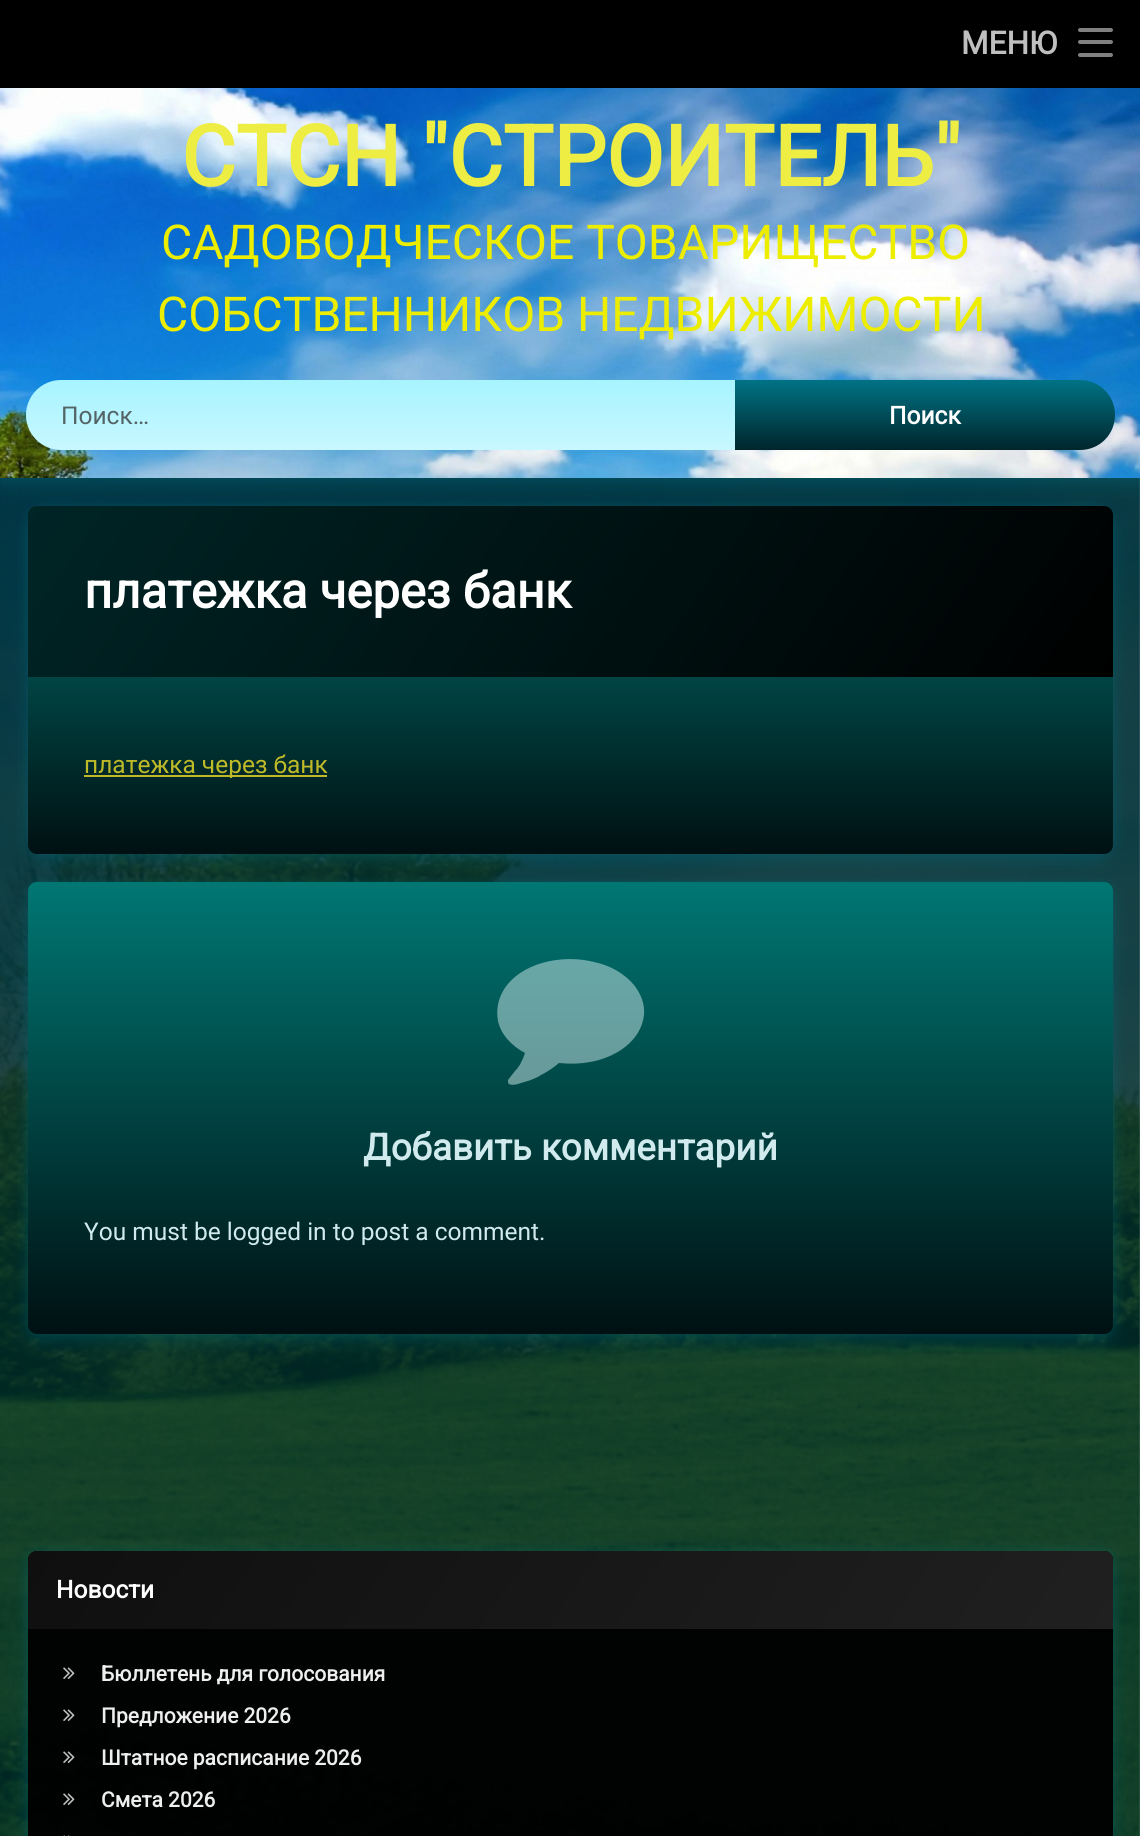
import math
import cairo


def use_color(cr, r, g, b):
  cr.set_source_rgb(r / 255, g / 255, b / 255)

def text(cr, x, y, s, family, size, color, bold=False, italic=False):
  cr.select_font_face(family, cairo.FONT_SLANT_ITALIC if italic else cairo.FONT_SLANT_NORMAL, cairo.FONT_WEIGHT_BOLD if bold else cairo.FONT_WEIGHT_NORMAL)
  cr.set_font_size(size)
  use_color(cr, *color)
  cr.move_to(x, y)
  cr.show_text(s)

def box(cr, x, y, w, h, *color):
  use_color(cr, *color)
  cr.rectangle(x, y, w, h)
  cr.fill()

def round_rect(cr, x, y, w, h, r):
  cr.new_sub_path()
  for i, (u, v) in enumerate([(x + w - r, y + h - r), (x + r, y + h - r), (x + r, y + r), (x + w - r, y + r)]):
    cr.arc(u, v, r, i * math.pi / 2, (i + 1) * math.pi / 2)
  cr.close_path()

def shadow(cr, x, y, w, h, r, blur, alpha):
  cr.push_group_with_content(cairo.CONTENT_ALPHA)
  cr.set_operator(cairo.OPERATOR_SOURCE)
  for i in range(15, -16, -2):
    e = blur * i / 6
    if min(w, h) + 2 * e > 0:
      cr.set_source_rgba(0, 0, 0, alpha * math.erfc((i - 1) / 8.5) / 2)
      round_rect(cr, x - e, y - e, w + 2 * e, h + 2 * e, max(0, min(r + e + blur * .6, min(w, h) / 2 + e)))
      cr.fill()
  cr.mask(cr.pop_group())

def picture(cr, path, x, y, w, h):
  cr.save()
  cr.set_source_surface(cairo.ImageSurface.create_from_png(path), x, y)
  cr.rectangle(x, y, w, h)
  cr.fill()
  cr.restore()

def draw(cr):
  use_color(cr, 255, 255, 255)
  cr.paint()
  picture(cr, "img_01.png", 0, 478, 1140, 1358)
  use_color(cr, 0, 115, 133)
  shadow(cr, 0, 88, 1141, 390, 0, 4.5, 0.25)
  shadow(cr, 28, 506, 1085, 348, 18, 4.5, 0.25)
  shadow(cr, 28, 515, 1085, 348, 18, 9, 0.25)
  gradient = cairo.LinearGradient(571, 506, 571, 854)
  gradient.add_color_stop_rgba(0, 0, 0.467, 0.451, 1)
  gradient.add_color_stop_rgba(1, 0, 0.063, 0.071, 1)
  cr.set_source(gradient)
  cr.new_path()
  cr.move_to(46, 506)
  cr.line_to(1095, 506)
  cr.curve_to(1105, 506, 1113, 514, 1113, 524)
  cr.line_to(1113, 845)
  cr.curve_to(1113, 850, 1109, 854, 1104, 854)
  cr.line_to(37, 854)
  cr.curve_to(32, 854, 28, 850, 28, 845)
  cr.line_to(28, 524)
  cr.curve_to(28, 514, 36, 506, 46, 506)
  cr.close_path()
  cr.fill()
  gradient = cairo.LinearGradient(166, 308, 975, 875)
  gradient.add_color_stop_rgba(0, 0, 0.145, 0.149, 1)
  gradient.add_color_stop_rgba(1, 0, 0, 0, 1)
  cr.set_source(gradient)
  cr.new_path()
  cr.move_to(37, 506)
  cr.line_to(1104, 506)
  cr.curve_to(1109, 506, 1113, 510, 1113, 515)
  cr.line_to(1113, 677)
  cr.line_to(28, 677)
  cr.line_to(28, 515)
  cr.curve_to(28, 510, 32, 506, 37, 506)
  cr.close_path()
  cr.fill()
  use_color(cr, 0, 115, 133)
  shadow(cr, 0, 96, 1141, 391, 0, 9, 0.25)
  box(cr, 0, 0, 1140, 88, 0, 0, 0)
  use_color(cr, 128, 128, 128)
  round_rect(cr, 1078, 28, 35, 4, 2)
  cr.fill()
  round_rect(cr, 1078, 40, 35, 4, 2)
  cr.fill()
  round_rect(cr, 1078, 53, 35, 4, 2)
  cr.fill()
  picture(cr, "img_02.png", 0, 88, 1140, 390)
  gradient = cairo.LinearGradient(569, 380, 569, 450)
  gradient.add_color_stop_rgba(0, 0.655, 0.957, 1, 1)
  gradient.add_color_stop_rgba(1, 0.784, 0.969, 1, 1)
  cr.set_source(gradient)
  round_rect(cr, 26, 380, 1085, 70, 35)
  cr.fill()
  gradient = cairo.LinearGradient(925, 380, 925, 450)
  gradient.add_color_stop_rgba(0, 0, 0.451, 0.522, 1)
  gradient.add_color_stop_rgba(1, 0, 0.145, 0.169, 1)
  cr.set_source(gradient)
  cr.new_path()
  cr.move_to(735, 380)
  cr.line_to(1080, 380)
  cr.curve_to(1099.5, 380, 1115, 395.5, 1115, 415)
  cr.curve_to(1115, 434.5, 1099.5, 450, 1080, 450)
  cr.line_to(735, 450)
  cr.close_path()
  cr.fill()
  box(cr, 84, 775, 243, 2, 193, 186, 40)
  use_color(cr, 0, 115, 133)
  shadow(cr, 28, 882, 1085, 452, 9, 4.5, 0.25)
  shadow(cr, 28, 891, 1085, 451, 9, 9, 0.25)
  gradient = cairo.LinearGradient(571, 882, 571, 1334)
  gradient.add_color_stop_rgba(0, 0, 0.467, 0.451, 1)
  gradient.add_color_stop_rgba(1, 0, 0.063, 0.071, 1)
  cr.set_source(gradient)
  round_rect(cr, 28, 882, 1085, 452, 9)
  cr.fill()
  cr.set_source_rgba(0.816, 0.918, 0.929, 0.5)
  cr.new_path()
  cr.move_to(634, 985)
  cr.curve_to(641, 994, 645, 1004, 644, 1015)
  cr.curve_to(641, 1042, 614, 1058, 590, 1062)
  cr.curve_to(579, 1064, 569, 1064, 559, 1063)
  cr.curve_to(553, 1068, 547, 1072, 541, 1075)
  cr.curve_to(535, 1079, 528, 1081, 521, 1083)
  cr.curve_to(519, 1084, 508, 1087, 508, 1082)
  cr.line_to(508, 1080)
  cr.line_to(515, 1071)
  cr.curve_to(520, 1066, 523, 1059, 525, 1053)
  cr.curve_to(512, 1046, 501, 1035, 498, 1021)
  cr.curve_to(496, 1010, 498, 1000, 503, 991)
  cr.curve_to(520, 962, 563, 954, 594, 962)
  cr.curve_to(609, 965, 624, 973, 634, 985)
  cr.close_path()
  cr.fill()
  cr.save()
  cr.set_fill_rule(cairo.FILL_RULE_EVEN_ODD)
  cr.new_path()
  cr.move_to(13, 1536)
  cr.line_to(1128, 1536)
  cr.line_to(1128, 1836)
  cr.line_to(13, 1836)
  cr.close_path()
  cr.move_to(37, 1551)
  cr.line_to(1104, 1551)
  cr.curve_to(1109, 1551, 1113, 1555, 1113, 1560)
  cr.line_to(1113, 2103)
  cr.curve_to(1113, 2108, 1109, 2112, 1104, 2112)
  cr.line_to(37, 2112)
  cr.curve_to(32, 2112, 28, 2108, 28, 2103)
  cr.line_to(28, 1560)
  cr.curve_to(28, 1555, 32, 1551, 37, 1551)
  cr.close_path()
  cr.clip()
  use_color(cr, 0, 115, 133)
  shadow(cr, 28, 1551, 1085, 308, 9, 4.5, 0.25)
  cr.restore()
  cr.save()
  cr.set_fill_rule(cairo.FILL_RULE_EVEN_ODD)
  cr.new_path()
  cr.move_to(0, 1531)
  cr.line_to(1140, 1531)
  cr.line_to(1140, 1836)
  cr.line_to(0, 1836)
  cr.close_path()
  cr.move_to(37, 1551)
  cr.line_to(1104, 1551)
  cr.curve_to(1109, 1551, 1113, 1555, 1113, 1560)
  cr.line_to(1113, 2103)
  cr.curve_to(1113, 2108, 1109, 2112, 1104, 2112)
  cr.line_to(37, 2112)
  cr.curve_to(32, 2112, 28, 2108, 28, 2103)
  cr.line_to(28, 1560)
  cr.curve_to(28, 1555, 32, 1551, 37, 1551)
  cr.close_path()
  cr.clip()
  use_color(cr, 0, 115, 133)
  shadow(cr, 28, 1559, 1085, 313, 9, 9, 0.25)
  cr.restore()
  cr.set_source_rgba(0, 0, 0, 0.95)
  round_rect(cr, 28, 1551, 1085, 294, 9)
  cr.fill()
  gradient = cairo.LinearGradient(188, 1322, 953, 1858)
  gradient.add_color_stop_rgba(0, 0.059, 0.059, 0.059, 1)
  gradient.add_color_stop_rgba(1, 0.125, 0.125, 0.125, 1)
  cr.set_source(gradient)
  cr.new_path()
  cr.move_to(37, 1551)
  cr.line_to(1104, 1551)
  cr.curve_to(1109, 1551, 1113, 1555, 1113, 1560)
  cr.line_to(1113, 1629)
  cr.line_to(28, 1629)
  cr.line_to(28, 1560)
  cr.curve_to(28, 1555, 32, 1551, 37, 1551)
  cr.close_path()
  cr.fill()
  picture(cr, "img_03.png", 63, 1667, 12, 12)
  picture(cr, "img_04.png", 63, 1709, 12, 12)
  picture(cr, "img_05.png", 63, 1751, 12, 12)
  picture(cr, "img_06.png", 63, 1793, 12, 12)
  picture(cr, "img_07.png", 63, 1835, 7, 1)
  text(cr, 961, 54, "МЕНЮ", "Roboto", 31.5, (191, 191, 191), bold=True)
  text(cr, 181, 186, "СТСН \"СТРОИТЕЛЬ\"", "Roboto", 84, (237, 237, 68), bold=True)
  text(cr, 161, 259, "САДОВОДЧЕСКОЕ ТОВАРИЩЕСТВО", "Roboto", 48, (237, 237, 0))
  text(cr, 157, 331, "СОБСТВЕННИКОВ НЕДВИЖИМОСТИ", "Roboto", 48, (237, 237, 0))
  text(cr, 61, 424, "Поиск…", "Roboto", 24.5, (84, 100, 102))
  text(cr, 889, 424, "Поиск", "Roboto", 24.5, (255, 255, 255), bold=True)
  text(cr, 84, 608, "платежка через банк", "Roboto", 49, (255, 255, 255), bold=True)
  text(cr, 84, 773, "платежка через банк", "Roboto", 24.5, (193, 186, 40))
  text(cr, 363, 1160, "Добавить комментарий", "Roboto", 36.75, (208, 234, 237), bold=True)
  text(cr, 84, 1240, "You must be logged in to post a comment.", "Roboto", 24.5, (208, 234, 237))
  text(cr, 56, 1598, "Новости", "Roboto", 24.5, (255, 255, 255), bold=True)
  text(cr, 101, 1681, "Бюллетень для голосования", "Roboto", 21, (238, 238, 238), bold=True)
  text(cr, 101, 1723, "Предложение 2026", "Roboto", 21, (238, 238, 238), bold=True)
  text(cr, 101, 1765, "Штатное расписание 2026", "Roboto", 21, (238, 238, 238), bold=True)
  text(cr, 101, 1807, "Смета 2026", "Roboto", 21, (238, 238, 238), bold=True)


surface = cairo.ImageSurface(cairo.FORMAT_RGB24, 1140, 1836)
cr = cairo.Context(surface)
options = cairo.FontOptions()
options.set_hint_metrics(cairo.HINT_METRICS_OFF)
options.set_hint_style(cairo.HINT_STYLE_NONE)
cr.set_font_options(options)
cr.set_miter_limit(4)
draw(cr)
surface.write_to_png("out.png")
